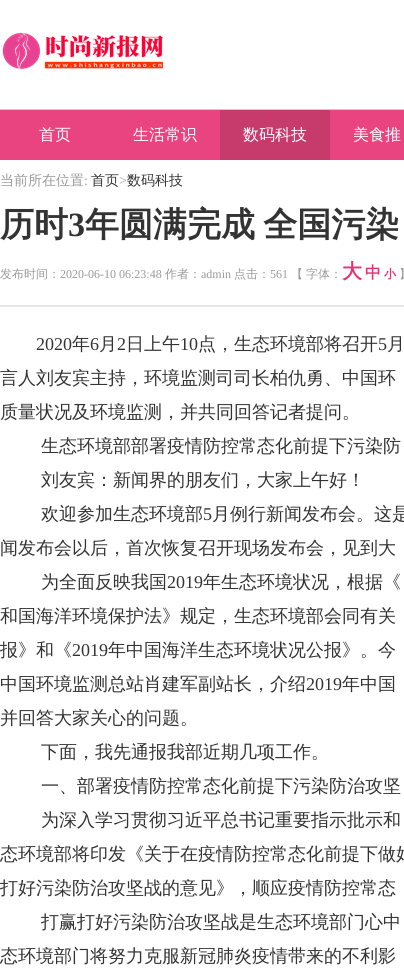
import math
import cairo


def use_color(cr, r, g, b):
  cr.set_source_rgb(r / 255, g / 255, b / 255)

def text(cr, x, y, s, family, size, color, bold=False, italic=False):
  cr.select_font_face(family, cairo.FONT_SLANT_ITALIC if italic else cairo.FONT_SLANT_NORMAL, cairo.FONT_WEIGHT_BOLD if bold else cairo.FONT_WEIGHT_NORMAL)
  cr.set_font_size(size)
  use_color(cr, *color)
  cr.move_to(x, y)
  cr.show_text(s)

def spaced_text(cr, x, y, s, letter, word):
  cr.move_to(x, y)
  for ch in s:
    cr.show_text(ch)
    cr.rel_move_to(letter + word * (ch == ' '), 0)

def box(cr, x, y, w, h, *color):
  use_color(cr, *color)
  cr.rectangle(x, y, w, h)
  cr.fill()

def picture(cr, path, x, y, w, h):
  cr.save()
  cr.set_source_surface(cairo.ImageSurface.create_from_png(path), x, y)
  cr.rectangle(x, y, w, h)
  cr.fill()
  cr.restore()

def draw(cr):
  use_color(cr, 255, 255, 255)
  cr.paint()
  box(cr, 0, 109, 404, 1, 204, 204, 204)
  picture(cr, "img_01.png", 2, 32, 162, 37)
  box(cr, 0, 110, 404, 50, 233, 68, 127)
  box(cr, 220, 110, 110, 50, 198, 58, 108)
  box(cr, 0, 305, 404, 2, 230, 230, 230)
  text(cr, 39, 140, "首页", "WenQuanYi Zen Hei Medium", 16, (255, 255, 255))
  text(cr, 133, 140, "生活常识", "WenQuanYi Zen Hei Medium", 16, (255, 255, 255))
  text(cr, 243, 140, "数码科技", "WenQuanYi Zen Hei Medium", 16, (255, 255, 255))
  text(cr, 353, 140, "美食推", "WenQuanYi Zen Hei Medium", 16, (255, 255, 255))
  text(cr, 0, 185, "当前所在位置", "WenQuanYi Zen Hei Medium", 14, (153, 153, 153))
  text(cr, 84, 185, ":", "Liberation Serif", 14, (153, 153, 153))
  text(cr, 91, 185, "首页", "WenQuanYi Zen Hei Medium", 14, (51, 51, 51))
  text(cr, 119, 185, ">", "Liberation Serif", 14, (153, 153, 153))
  text(cr, 127, 185, "数码科技", "WenQuanYi Zen Hei Medium", 14, (51, 51, 51))
  text(cr, 0, 236, "历时", "WenQuanYi Zen Hei", 34, (51, 51, 51), bold=True)
  text(cr, 68, 236, "3", "Liberation Serif", 34, (51, 51, 51), bold=True)
  cr.select_font_face("WenQuanYi Zen Hei", cairo.FONT_SLANT_NORMAL, cairo.FONT_WEIGHT_BOLD)
  spaced_text(cr, 85, 236, "年圆满完成 全国污染", 0, -2)
  text(cr, 0, 278, "发布时间：", "WenQuanYi Zen Hei Medium", 12, (153, 153, 153))
  text(cr, 60, 278, "2020-06-10 06:23:48", "Liberation Serif", 12, (153, 153, 153))
  text(cr, 165, 278, "作者：", "WenQuanYi Zen Hei Medium", 12, (153, 153, 153))
  text(cr, 201, 278, "admin", "Liberation Serif", 12, (153, 153, 153))
  text(cr, 234, 278, "点击：", "WenQuanYi Zen Hei Medium", 12, (153, 153, 153))
  text(cr, 270, 278, "561", "Liberation Serif", 12, (153, 153, 153))
  text(cr, 291, 278, "【", "WenQuanYi Zen Hei Medium", 12, (153, 153, 153))
  text(cr, 306, 278, "字体：", "WenQuanYi Zen Hei Medium", 12, (153, 153, 153))
  text(cr, 342, 278, "大", "WenQuanYi Zen Hei", 20, (233, 50, 116), bold=True)
  text(cr, 365, 278, "中", "WenQuanYi Zen Hei", 16, (233, 50, 116), bold=True)
  text(cr, 384, 278, "小", "WenQuanYi Zen Hei", 12, (233, 50, 116), bold=True)
  text(cr, 399, 278, "】", "WenQuanYi Zen Hei Medium", 12, (153, 153, 153))
  text(cr, 36, 350, "2020", "Liberation Serif", 18, (51, 51, 51))
  text(cr, 72, 350, "年", "WenQuanYi Zen Hei Medium", 18, (51, 51, 51))
  text(cr, 90, 350, "6", "Liberation Serif", 18, (51, 51, 51))
  text(cr, 99, 350, "月", "WenQuanYi Zen Hei Medium", 18, (51, 51, 51))
  text(cr, 117, 350, "2", "Liberation Serif", 18, (51, 51, 51))
  text(cr, 126, 350, "日上午", "WenQuanYi Zen Hei Medium", 18, (51, 51, 51))
  text(cr, 180, 350, "10", "Liberation Serif", 18, (51, 51, 51))
  text(cr, 198, 350, "点，生态环境部将召开", "WenQuanYi Zen Hei Medium", 18, (51, 51, 51))
  text(cr, 378, 350, "5", "Liberation Serif", 18, (51, 51, 51))
  text(cr, 387, 350, "月", "WenQuanYi Zen Hei Medium", 18, (51, 51, 51))
  text(cr, 0, 384, "言人刘友宾主持，环境监测司司长柏仇勇、中国环", "WenQuanYi Zen Hei Medium", 18, (51, 51, 51))
  text(cr, 0, 418, "质量状况及环境监测，并共同回答记者提问。", "WenQuanYi Zen Hei Medium", 18, (51, 51, 51))
  text(cr, 41, 452, "生态环境部部署疫情防控常态化前提下污染防", "WenQuanYi Zen Hei Medium", 18, (51, 51, 51))
  text(cr, 41, 486, "刘友宾：新闻界的朋友们，大家上午好！", "WenQuanYi Zen Hei Medium", 18, (51, 51, 51))
  text(cr, 41, 520, "欢迎参加生态环境部", "WenQuanYi Zen Hei Medium", 18, (51, 51, 51))
  text(cr, 203, 520, "5", "Liberation Serif", 18, (51, 51, 51))
  text(cr, 212, 520, "月例行新闻发布会。这是", "WenQuanYi Zen Hei Medium", 18, (51, 51, 51))
  text(cr, 0, 554, "闻发布会以后，首次恢复召开现场发布会，见到大", "WenQuanYi Zen Hei Medium", 18, (51, 51, 51))
  text(cr, 41, 588, "为全面反映我国", "WenQuanYi Zen Hei Medium", 18, (51, 51, 51))
  text(cr, 167, 588, "2019", "Liberation Serif", 18, (51, 51, 51))
  text(cr, 203, 588, "年生态环境状况，根据《", "WenQuanYi Zen Hei Medium", 18, (51, 51, 51))
  text(cr, 0, 622, "和国海洋环境保护法》规定，生态环境部会同有关", "WenQuanYi Zen Hei Medium", 18, (51, 51, 51))
  text(cr, 0, 656, "报》和《", "WenQuanYi Zen Hei Medium", 18, (51, 51, 51))
  text(cr, 72, 656, "2019", "Liberation Serif", 18, (51, 51, 51))
  cr.select_font_face("WenQuanYi Zen Hei Medium")
  spaced_text(cr, 108, 656, "年中国海洋生态环境状况公报》。今", 0, -1)
  text(cr, 0, 690, "中国环境监测总站肖建军副站长，介绍", "WenQuanYi Zen Hei Medium", 18, (51, 51, 51))
  text(cr, 306, 690, "2019", "Liberation Serif", 18, (51, 51, 51))
  text(cr, 342, 690, "年中国", "WenQuanYi Zen Hei Medium", 18, (51, 51, 51))
  text(cr, 0, 724, "并回答大家关心的问题。", "WenQuanYi Zen Hei Medium", 18, (51, 51, 51))
  text(cr, 41, 758, "下面，我先通报我部近期几项工作。", "WenQuanYi Zen Hei Medium", 18, (51, 51, 51))
  text(cr, 41, 792, "一、部署疫情防控常态化前提下污染防治攻坚", "WenQuanYi Zen Hei Medium", 18, (51, 51, 51))
  text(cr, 41, 826, "为深入学习贯彻习近平总书记重要指示批示和", "WenQuanYi Zen Hei Medium", 18, (51, 51, 51))
  text(cr, 0, 860, "态环境部将印发《关于在疫情防控常态化前提下做好", "WenQuanYi Zen Hei Medium", 18, (51, 51, 51))
  text(cr, 0, 894, "打好污染防治攻坚战的意见》，顺应疫情防控常态", "WenQuanYi Zen Hei Medium", 18, (51, 51, 51))
  text(cr, 41, 928, "打赢打好污染防治攻坚战是生态环境部门心中", "WenQuanYi Zen Hei Medium", 18, (51, 51, 51))
  text(cr, 0, 962, "态环境部门将努力克服新冠肺炎疫情带来的不利影", "WenQuanYi Zen Hei Medium", 18, (51, 51, 51))


surface = cairo.ImageSurface(cairo.FORMAT_RGB24, 404, 980)
cr = cairo.Context(surface)
options = cairo.FontOptions()
options.set_hint_metrics(cairo.HINT_METRICS_OFF)
options.set_hint_style(cairo.HINT_STYLE_NONE)
cr.set_font_options(options)
cr.set_miter_limit(4)
draw(cr)
surface.write_to_png("out.png")
